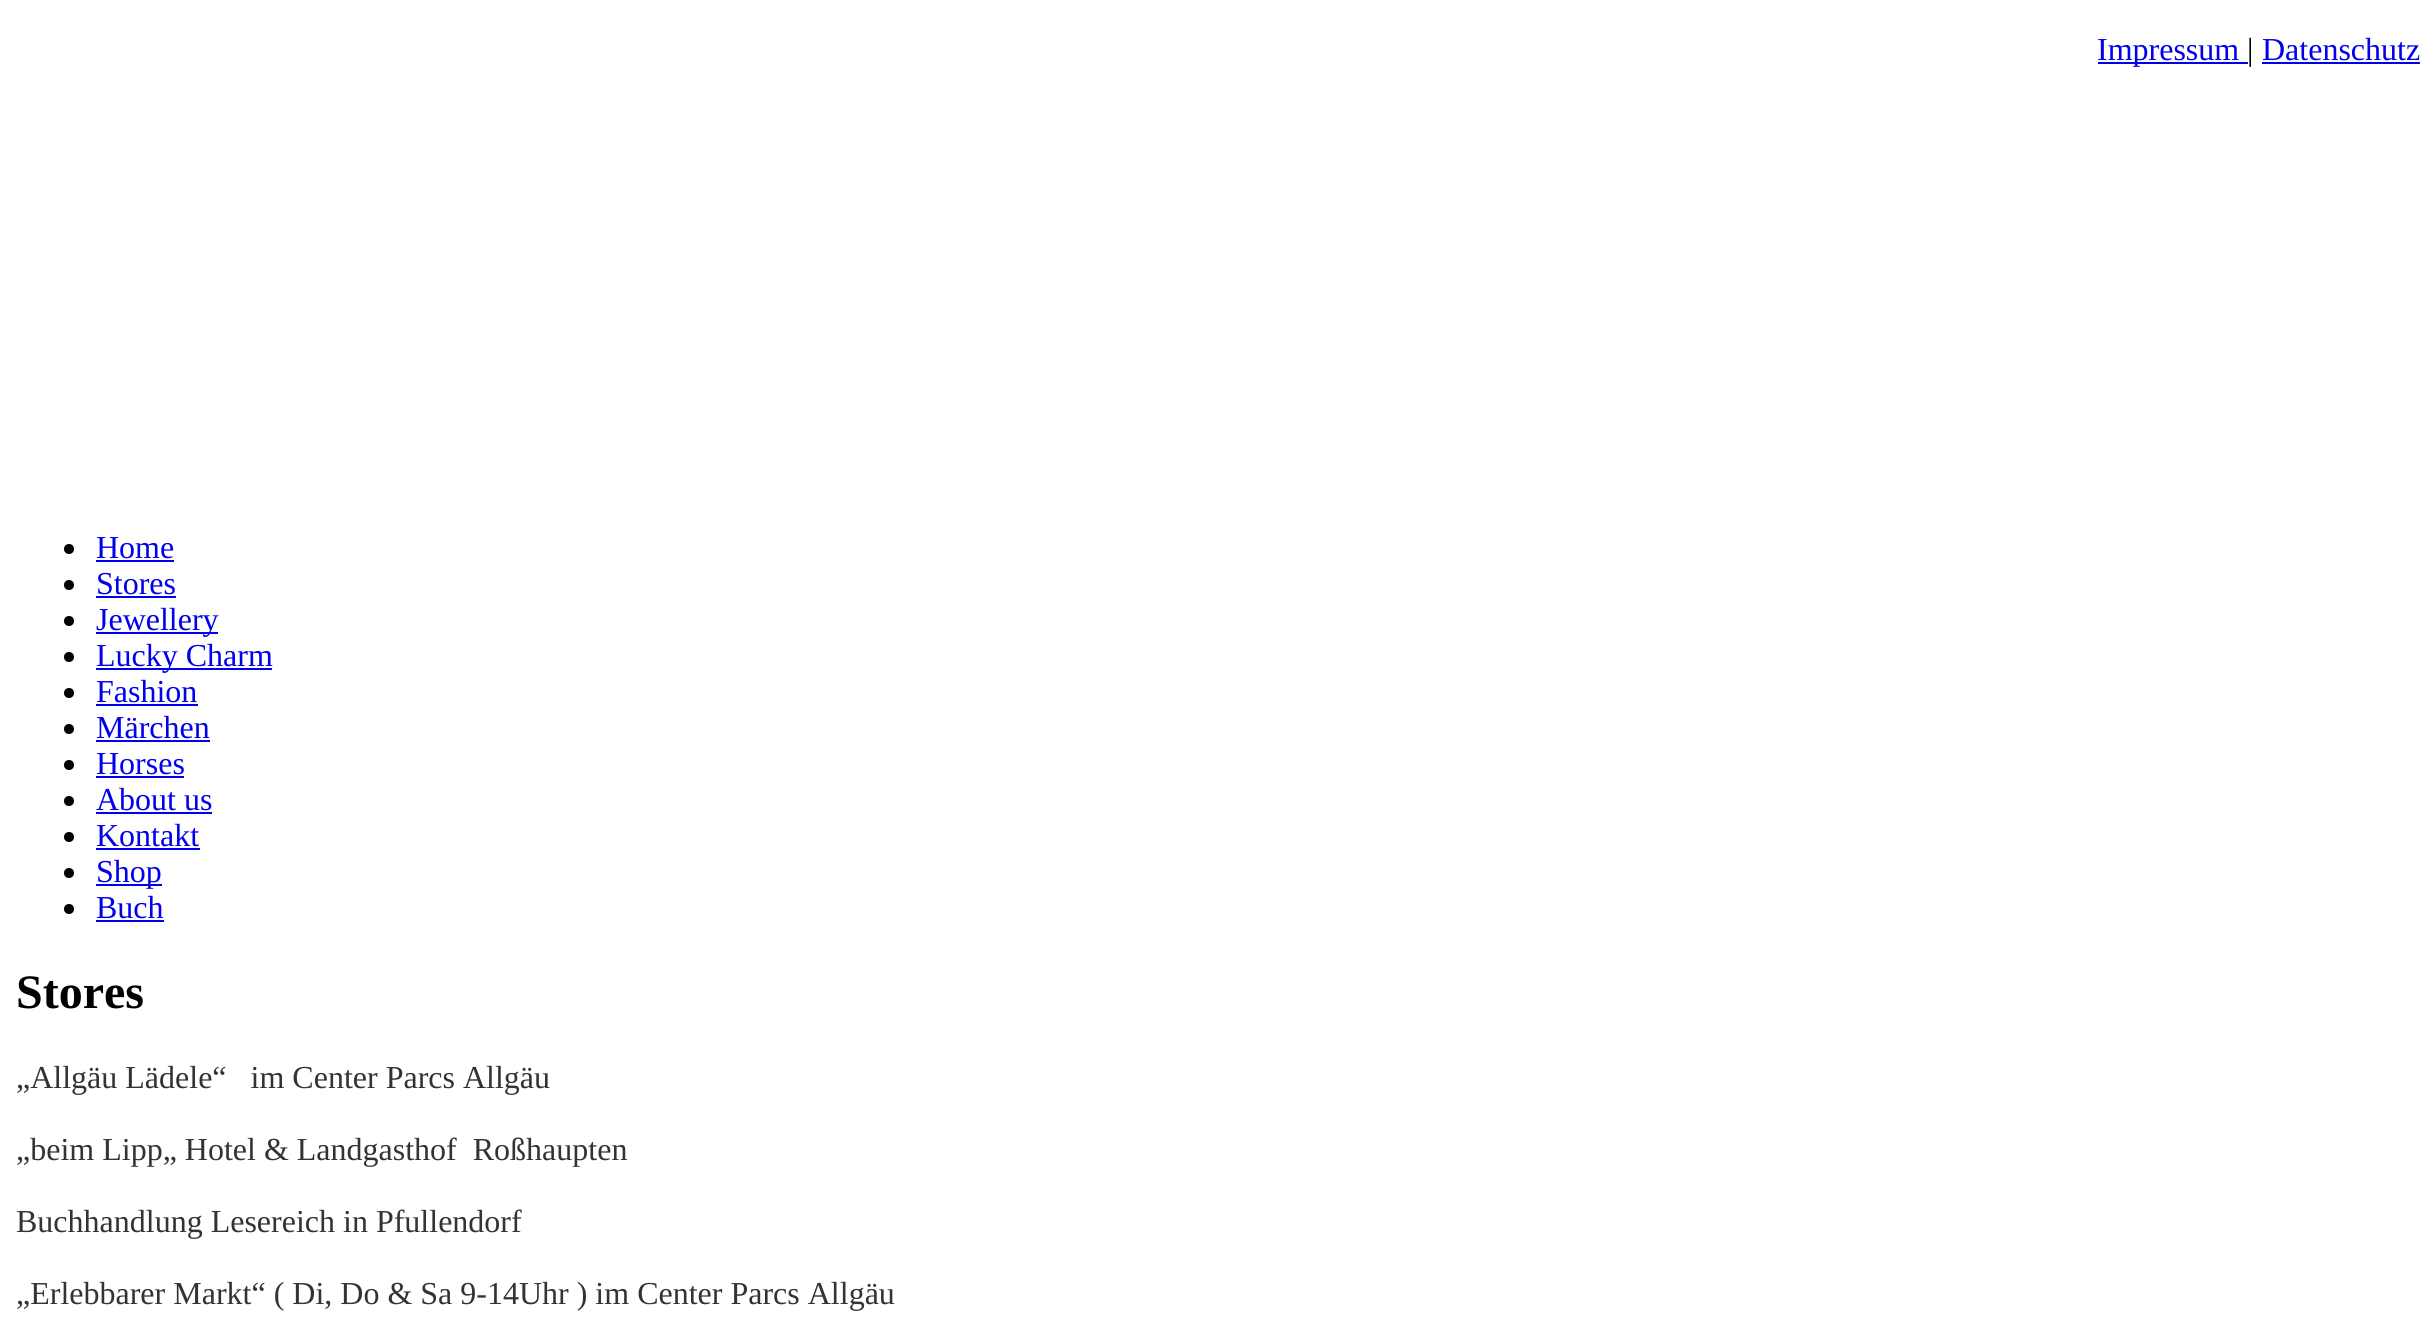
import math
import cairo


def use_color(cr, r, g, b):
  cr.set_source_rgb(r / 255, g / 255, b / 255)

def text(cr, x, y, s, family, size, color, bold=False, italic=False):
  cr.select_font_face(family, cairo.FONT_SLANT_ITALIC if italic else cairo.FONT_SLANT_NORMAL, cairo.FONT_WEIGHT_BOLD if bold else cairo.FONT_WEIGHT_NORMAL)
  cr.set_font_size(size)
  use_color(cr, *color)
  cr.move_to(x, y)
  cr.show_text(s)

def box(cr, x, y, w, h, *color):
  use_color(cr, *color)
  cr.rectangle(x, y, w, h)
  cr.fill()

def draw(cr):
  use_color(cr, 255, 255, 255)
  cr.paint()
  box(cr, 2098, 62, 150, 2, 0, 0, 238)
  box(cr, 2262, 62, 158, 2, 0, 0, 238)
  use_color(cr, 0, 0, 0)
  cr.arc(69, 549, 5, 0, 2 * math.pi)
  cr.fill()
  box(cr, 96, 560, 78, 2, 0, 0, 238)
  use_color(cr, 0, 0, 0)
  cr.arc(69, 585, 5, 0, 2 * math.pi)
  cr.fill()
  box(cr, 96, 596, 80, 2, 0, 0, 238)
  use_color(cr, 0, 0, 0)
  cr.arc(69, 621, 5, 0, 2 * math.pi)
  cr.fill()
  box(cr, 96, 632, 122, 2, 0, 0, 238)
  use_color(cr, 0, 0, 0)
  cr.arc(69, 657, 5, 0, 2 * math.pi)
  cr.fill()
  box(cr, 96, 668, 176, 2, 0, 0, 238)
  use_color(cr, 0, 0, 0)
  cr.arc(69, 693, 5, 0, 2 * math.pi)
  cr.fill()
  box(cr, 96, 704, 102, 2, 0, 0, 238)
  use_color(cr, 0, 0, 0)
  cr.arc(69, 729, 5, 0, 2 * math.pi)
  cr.fill()
  box(cr, 96, 740, 114, 2, 0, 0, 238)
  use_color(cr, 0, 0, 0)
  cr.arc(69, 765, 5, 0, 2 * math.pi)
  cr.fill()
  box(cr, 96, 776, 88, 2, 0, 0, 238)
  use_color(cr, 0, 0, 0)
  cr.arc(69, 801, 5, 0, 2 * math.pi)
  cr.fill()
  box(cr, 96, 812, 116, 2, 0, 0, 238)
  use_color(cr, 0, 0, 0)
  cr.arc(69, 837, 5, 0, 2 * math.pi)
  cr.fill()
  box(cr, 96, 848, 104, 2, 0, 0, 238)
  use_color(cr, 0, 0, 0)
  cr.arc(69, 873, 5, 0, 2 * math.pi)
  cr.fill()
  box(cr, 96, 884, 66, 2, 0, 0, 238)
  use_color(cr, 0, 0, 0)
  cr.arc(69, 909, 5, 0, 2 * math.pi)
  cr.fill()
  box(cr, 96, 920, 68, 2, 0, 0, 238)
  text(cr, 2097, 60, "Impressum", "Liberation Serif", 32, (0, 0, 238))
  text(cr, 2247, 60, "|", "Liberation Serif", 32, (0, 0, 0))
  text(cr, 2262, 60, "Datenschutz", "Liberation Serif", 32, (0, 0, 238))
  text(cr, 96, 558, "Home", "Liberation Serif", 32, (0, 0, 238))
  text(cr, 96, 594, "Stores", "Liberation Serif", 32, (0, 0, 238))
  text(cr, 96, 630, "Jewellery", "Liberation Serif", 32, (0, 0, 238))
  text(cr, 96, 666, "Lucky Charm", "Liberation Serif", 32, (0, 0, 238))
  text(cr, 96, 702, "Fashion", "Liberation Serif", 32, (0, 0, 238))
  text(cr, 96, 738, "Märchen", "Liberation Serif", 32, (0, 0, 238))
  text(cr, 96, 774, "Horses", "Liberation Serif", 32, (0, 0, 238))
  text(cr, 96, 810, "About us", "Liberation Serif", 32, (0, 0, 238))
  text(cr, 96, 846, "Kontakt", "Liberation Serif", 32, (0, 0, 238))
  text(cr, 96, 882, "Shop", "Liberation Serif", 32, (0, 0, 238))
  text(cr, 96, 918, "Buch", "Liberation Serif", 32, (0, 0, 238))
  text(cr, 16, 1008, "Stores", "Liberation Serif", 48, (0, 0, 0), bold=True)
  text(cr, 16, 1088, "„Allgäu Lädele“   im Center Parcs Allgäu", "Liberation Serif", 32, (51, 51, 51))
  text(cr, 16, 1160, "„beim Lipp„ Hotel & Landgasthof  Roßhaupten", "Liberation Serif", 32, (51, 51, 51))
  text(cr, 16, 1232, "Buchhandlung Lesereich in Pfullendorf", "Liberation Serif", 32, (51, 51, 51))
  text(cr, 16, 1304, "„Erlebbarer Markt“ ( Di, Do & Sa 9-14Uhr ) im Center Parcs Allgäu", "Liberation Serif", 32, (51, 51, 51))


surface = cairo.ImageSurface(cairo.FORMAT_RGB24, 2435, 1339)
cr = cairo.Context(surface)
options = cairo.FontOptions()
options.set_hint_metrics(cairo.HINT_METRICS_OFF)
options.set_hint_style(cairo.HINT_STYLE_NONE)
cr.set_font_options(options)
cr.set_miter_limit(4)
draw(cr)
surface.write_to_png("out.png")
